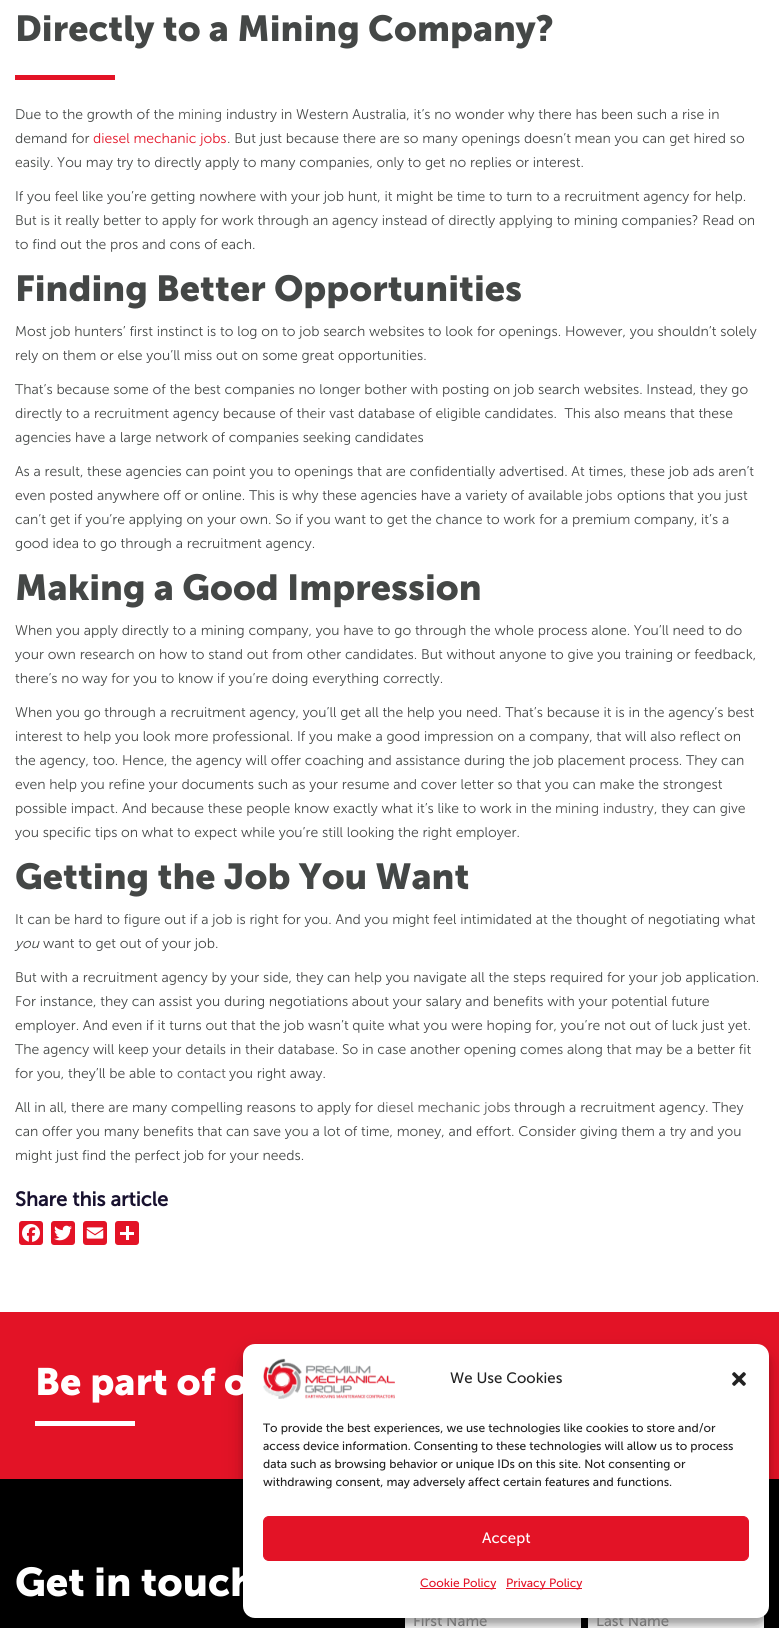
import math
import cairo


def use_color(cr, r, g, b):
  cr.set_source_rgb(r / 255, g / 255, b / 255)

def text(cr, x, y, s, family, size, color, bold=False, italic=False):
  cr.select_font_face(family, cairo.FONT_SLANT_ITALIC if italic else cairo.FONT_SLANT_NORMAL, cairo.FONT_WEIGHT_BOLD if bold else cairo.FONT_WEIGHT_NORMAL)
  cr.set_font_size(size)
  use_color(cr, *color)
  cr.move_to(x, y)
  cr.show_text(s)

def box(cr, x, y, w, h, *color):
  use_color(cr, *color)
  cr.rectangle(x, y, w, h)
  cr.fill()

def round_rect(cr, x, y, w, h, r):
  cr.new_sub_path()
  for i, (u, v) in enumerate([(x + w - r, y + h - r), (x + r, y + h - r), (x + r, y + r), (x + w - r, y + r)]):
    cr.arc(u, v, r, i * math.pi / 2, (i + 1) * math.pi / 2)
  cr.close_path()

def shadow(cr, x, y, w, h, r, blur, alpha):
  cr.push_group_with_content(cairo.CONTENT_ALPHA)
  cr.set_operator(cairo.OPERATOR_SOURCE)
  for i in range(15, -16, -2):
    e = blur * i / 6
    if min(w, h) + 2 * e > 0:
      cr.set_source_rgba(0, 0, 0, alpha * math.erfc((i - 1) / 8.5) / 2)
      round_rect(cr, x - e, y - e, w + 2 * e, h + 2 * e, max(0, min(r + e + blur * .6, min(w, h) / 2 + e)))
      cr.fill()
  cr.mask(cr.pop_group())

def picture(cr, path, x, y, w, h):
  cr.save()
  cr.set_source_surface(cairo.ImageSurface.create_from_png(path), x, y)
  cr.rectangle(x, y, w, h)
  cr.fill()
  cr.restore()

def draw(cr):
  use_color(cr, 255, 255, 255)
  cr.paint()
  box(cr, 15, 75, 100, 5, 227, 19, 38)
  round_rect(cr, 19, 1221, 24, 24, 3)
  cr.fill()
  picture(cr, "img_01.png", 22, 1224, 18, 18)
  round_rect(cr, 51, 1221, 24, 24, 3)
  cr.fill()
  picture(cr, "img_02.png", 54, 1225, 18, 16)
  round_rect(cr, 83, 1221, 24, 24, 3)
  cr.fill()
  picture(cr, "img_03.png", 86, 1227, 18, 12)
  round_rect(cr, 115, 1221, 24, 24, 3)
  cr.fill()
  box(cr, 126, 1226, 3, 14, 255, 255, 255)
  box(cr, 120, 1232, 14, 3, 255, 255, 255)
  box(cr, 0, 1312, 779, 167, 227, 19, 38)
  box(cr, 35, 1421, 100, 5, 255, 255, 255)
  box(cr, 0, 1479, 779, 149, 0, 0, 0)
  box(cr, 405, 1618, 176, 10, 255, 255, 255)
  box(cr, 588, 1615, 176, 13, 255, 255, 255)
  use_color(cr, 0, 0, 0)
  shadow(cr, 243, 1350, 526, 274, 12, 3, 0.23)
  shadow(cr, 243, 1354, 526, 274, 12, 10, 0.19)
  text(cr, 15, 41, "Directly to a Mining Company?", "Museo Sans", 36, (68, 71, 70), bold=True)
  text(cr, 15, 119, "Due to the growth of the", "Museo Sans Light", 14, (68, 71, 70))
  text(cr, 178, 119, "mining", "Museo Sans Light", 14, (85, 85, 85))
  text(cr, 226, 119, "industry in Western Australia, it’s no wonder why there has been such a rise in", "Museo Sans Light", 14, (68, 71, 70))
  text(cr, 15, 143, "demand for", "Museo Sans Light", 14, (68, 71, 70))
  text(cr, 93, 143, "diesel mechanic jobs", "Museo Sans Light", 14, (227, 19, 38))
  text(cr, 227, 143, ". But just because there are so many openings doesn’t mean you can get hired so", "Museo Sans Light", 14, (68, 71, 70))
  text(cr, 15, 167, "easily. You may try to directly apply to many companies, only to get no replies or interest.", "Museo Sans Light", 14, (68, 71, 70))
  text(cr, 15, 201, "If you feel like you’re getting nowhere with your job hunt, it might be time to turn to a recruitment agency for help.", "Museo Sans Light", 14, (68, 71, 70))
  text(cr, 15, 225, "But is it really better to apply for work through an agency instead of directly applying to mining companies? Read on", "Museo Sans Light", 14, (68, 71, 70))
  text(cr, 15, 249, "to find out the pros and cons of each.", "Museo Sans Light", 14, (68, 71, 70))
  text(cr, 15, 301, "Finding Better Opportunities", "Museo Sans", 36, (68, 71, 70), bold=True)
  text(cr, 15, 336, "Most job hunters’ first instinct is to log on to job search websites to look for openings. However, you shouldn’t solely", "Museo Sans Light", 14, (68, 71, 70))
  text(cr, 15, 360, "rely on them or else you’ll miss out on some great opportunities.", "Museo Sans Light", 14, (68, 71, 70))
  text(cr, 15, 394, "That’s because some of the best companies no longer bother with posting on job search websites. Instead, they go", "Museo Sans Light", 14, (68, 71, 70))
  text(cr, 15, 418, "directly to a recruitment agency because of their vast database of eligible candidates.  This also means that these", "Museo Sans Light", 14, (68, 71, 70))
  text(cr, 15, 442, "agencies have a large network of companies seeking candidates", "Museo Sans Light", 14, (68, 71, 70))
  text(cr, 15, 476, "As a result, these agencies can point you to openings that are confidentially advertised. At times, these job ads aren’t", "Museo Sans Light", 14, (68, 71, 70))
  text(cr, 15, 500, "even posted anywhere off or online. This is why these agencies have a variety of available", "Museo Sans Light", 14, (68, 71, 70))
  text(cr, 586, 500, "jobs", "Museo Sans Light", 14, (85, 85, 85))
  text(cr, 617, 500, "options that you just", "Museo Sans Light", 14, (68, 71, 70))
  text(cr, 15, 524, "can’t get if you’re applying on your own. So if you want to get the chance to work for a premium company, it’s a", "Museo Sans Light", 14, (68, 71, 70))
  text(cr, 15, 548, "good idea to go through a recruitment agency.", "Museo Sans Light", 14, (68, 71, 70))
  text(cr, 15, 600, "Making a Good Impression", "Museo Sans", 36, (68, 71, 70), bold=True)
  text(cr, 15, 635, "When you apply directly to a mining company, you have to go through the whole process alone. You’ll need to do", "Museo Sans Light", 14, (68, 71, 70))
  text(cr, 15, 659, "your own research on how to stand out from other candidates. But without anyone to give you training or feedback,", "Museo Sans Light", 14, (68, 71, 70))
  text(cr, 15, 683, "there’s no way for you to know if you’re doing everything correctly.", "Museo Sans Light", 14, (68, 71, 70))
  text(cr, 15, 717, "When you go through a recruitment agency, you’ll get all the help you need. That’s because it is in the agency’s best", "Museo Sans Light", 14, (68, 71, 70))
  text(cr, 15, 741, "interest to help you look more professional. If you make a good impression on a company, that will also reflect on", "Museo Sans Light", 14, (68, 71, 70))
  text(cr, 15, 765, "the agency, too. Hence, the agency will offer coaching and assistance during the job placement process. They can", "Museo Sans Light", 14, (68, 71, 70))
  text(cr, 15, 789, "even help you refine your documents such as your resume and cover letter so that you can make the strongest", "Museo Sans Light", 14, (68, 71, 70))
  text(cr, 15, 813, "possible impact. And because these people know exactly what it’s like to work in the", "Museo Sans Light", 14, (68, 71, 70))
  text(cr, 555, 813, "mining industry", "Museo Sans Light", 14, (85, 85, 85))
  text(cr, 654, 813, ", they can give", "Museo Sans Light", 14, (68, 71, 70))
  text(cr, 15, 837, "you specific tips on what to expect while you’re still looking the right employer.", "Museo Sans Light", 14, (68, 71, 70))
  text(cr, 15, 889, "Getting the Job You Want", "Museo Sans", 36, (68, 71, 70), bold=True)
  text(cr, 15, 924, "It can be hard to figure out if a job is right for you. And you might feel intimidated at the thought of negotiating what", "Museo Sans Light", 14, (68, 71, 70))
  text(cr, 15, 948, "you", "Museo Sans Light", 14, (68, 71, 70), italic=True)
  text(cr, 43, 948, "want to get out of your job.", "Museo Sans Light", 14, (68, 71, 70))
  text(cr, 15, 982, "But with a recruitment agency by your side, they can help you navigate all the steps required for your job application.", "Museo Sans Light", 14, (68, 71, 70))
  text(cr, 15, 1006, "For instance, they can assist you during negotiations about your salary and benefits with your potential future", "Museo Sans Light", 14, (68, 71, 70))
  text(cr, 15, 1030, "employer. And even if it turns out that the job wasn’t quite what you were hoping for, you’re not out of luck just yet.", "Museo Sans Light", 14, (68, 71, 70))
  text(cr, 15, 1054, "The agency will keep your details in their database. So in case another opening comes along that may be a better fit", "Museo Sans Light", 14, (68, 71, 70))
  text(cr, 15, 1078, "for you, they’ll be able to", "Museo Sans Light", 14, (68, 71, 70))
  text(cr, 177, 1078, "contact", "Museo Sans Light", 14, (85, 85, 85))
  text(cr, 229, 1078, "you right away.", "Museo Sans Light", 14, (68, 71, 70))
  text(cr, 15, 1112, "All in all, there are many compelling reasons to apply for", "Museo Sans Light", 14, (68, 71, 70))
  text(cr, 377, 1112, "diesel mechanic jobs", "Museo Sans Light", 14, (85, 85, 85))
  text(cr, 514, 1112, "through a recruitment agency. They", "Museo Sans Light", 14, (68, 71, 70))
  text(cr, 15, 1136, "can offer you many benefits that can save you a lot of time, money, and effort. Consider giving them a try and you", "Museo Sans Light", 14, (68, 71, 70))
  text(cr, 15, 1160, "might just find the perfect job for your needs.", "Museo Sans Light", 14, (68, 71, 70))
  text(cr, 15, 1206, "Share this article", "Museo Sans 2", 20, (24, 17, 47), bold=True)
  text(cr, 35, 1395, "Be part of o", "Museo Sans", 38, (255, 255, 255), bold=True)
  text(cr, 15, 1596, "Get in touch", "Museo Sans", 40, (255, 255, 255), bold=True)
  text(cr, 413, 1626, "First Name", "Museo Sans", 15, (117, 117, 117))
  text(cr, 596, 1626, "Last Name", "Museo Sans", 15, (117, 117, 117))
  use_color(cr, 255, 255, 255)
  round_rect(cr, 243, 1344, 526, 274, 12)
  cr.fill()
  text(cr, 263, 1486, "withdrawing consent, may adversely affect certain features and functions.", "Museo Sans", 12, (34, 34, 34))
  text(cr, 263, 1468, "data such as browsing behavior or unique IDs on this site. Not consenting or", "Museo Sans", 12, (34, 34, 34))
  text(cr, 263, 1450, "access device information. Consenting to these technologies will allow us to process", "Museo Sans", 12, (34, 34, 34))
  text(cr, 263, 1432, "To provide the best experiences, we use technologies like cookies to store and/or", "Museo Sans", 12, (34, 34, 34))
  picture(cr, "img_05.png", 732, 1372, 14, 14)
  box(cr, 506, 1588, 76, 1, 227, 19, 38)
  text(cr, 506, 1587, "Privacy Policy", "Museo Sans", 12, (227, 19, 38))
  box(cr, 420, 1588, 76, 1, 227, 19, 38)
  text(cr, 420, 1587, "Cookie Policy", "Museo Sans", 12, (227, 19, 38))
  round_rect(cr, 263.5, 1516.5, 485, 44, 5.5)
  cr.fill_preserve()
  cr.set_line_width(1)
  cr.stroke()
  text(cr, 482, 1543, "Accept", "Museo Sans", 15, (255, 255, 255))
  text(cr, 450, 1383, "We Use Cookies", "Museo Sans", 15, (34, 34, 34))
  picture(cr, "img_04.png", 263, 1358, 132, 41)


surface = cairo.ImageSurface(cairo.FORMAT_RGB24, 779, 1628)
cr = cairo.Context(surface)
options = cairo.FontOptions()
options.set_hint_metrics(cairo.HINT_METRICS_OFF)
options.set_hint_style(cairo.HINT_STYLE_NONE)
cr.set_font_options(options)
cr.set_miter_limit(4)
draw(cr)
surface.write_to_png("out.png")
